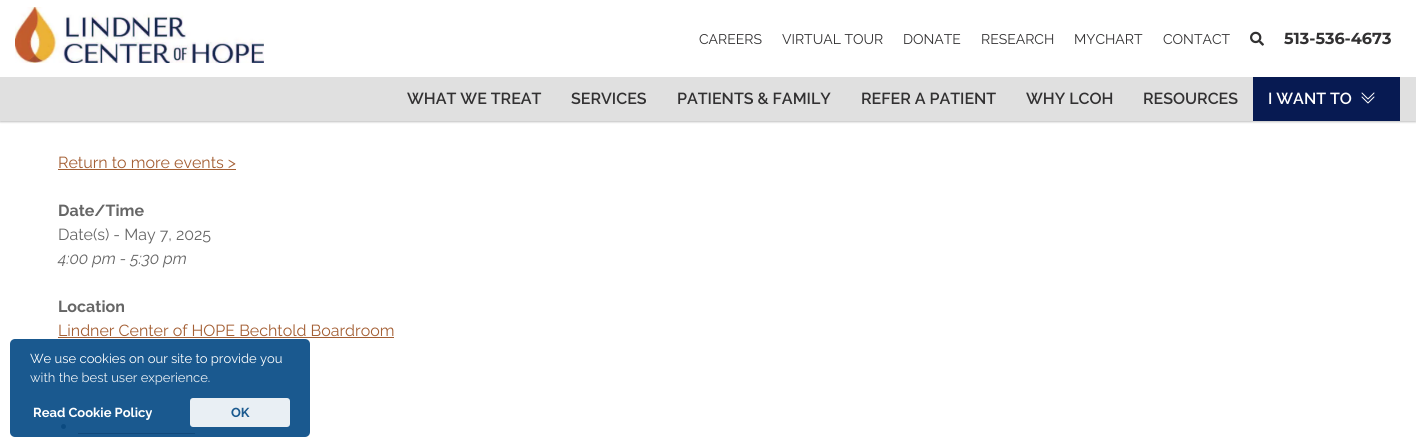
import math
import cairo


def use_color(cr, r, g, b):
  cr.set_source_rgb(r / 255, g / 255, b / 255)

def text(cr, x, y, s, family, size, color, bold=False, italic=False):
  cr.select_font_face(family, cairo.FONT_SLANT_ITALIC if italic else cairo.FONT_SLANT_NORMAL, cairo.FONT_WEIGHT_BOLD if bold else cairo.FONT_WEIGHT_NORMAL)
  cr.set_font_size(size)
  use_color(cr, *color)
  cr.move_to(x, y)
  cr.show_text(s)

def box(cr, x, y, w, h, *color):
  use_color(cr, *color)
  cr.rectangle(x, y, w, h)
  cr.fill()

def round_rect(cr, x, y, w, h, r):
  cr.new_sub_path()
  for i, (u, v) in enumerate([(x + w - r, y + h - r), (x + r, y + h - r), (x + r, y + r), (x + w - r, y + r)]):
    cr.arc(u, v, r, i * math.pi / 2, (i + 1) * math.pi / 2)
  cr.close_path()

def shadow(cr, x, y, w, h, r, blur, alpha):
  cr.push_group_with_content(cairo.CONTENT_ALPHA)
  cr.set_operator(cairo.OPERATOR_SOURCE)
  for i in range(15, -16, -2):
    e = blur * i / 6
    if min(w, h) + 2 * e > 0:
      cr.set_source_rgba(0, 0, 0, alpha * math.erfc((i - 1) / 8.5) / 2)
      round_rect(cr, x - e, y - e, w + 2 * e, h + 2 * e, max(0, min(r + e + blur * .6, min(w, h) / 2 + e)))
      cr.fill()
  cr.mask(cr.pop_group())

def picture(cr, path, x, y, w, h):
  cr.save()
  cr.set_source_surface(cairo.ImageSurface.create_from_png(path), x, y)
  cr.rectangle(x, y, w, h)
  cr.fill()
  cr.restore()

def draw(cr):
  use_color(cr, 255, 255, 255)
  cr.paint()
  use_color(cr, 0, 0, 0)
  shadow(cr, 0, 1, 1416, 121, 0, 1, 0.25)
  box(cr, 0, 0, 1416, 77, 255, 255, 255)
  picture(cr, "img_01.png", 15, 7, 249, 56)
  picture(cr, "img_02.png", 1250, 31, 14, 15)
  box(cr, 0, 77, 1416, 44, 224, 224, 224)
  box(cr, 1253, 77, 147, 44, 7, 26, 82)
  picture(cr, "img_03.png", 1361, 92, 14, 12)
  box(cr, 58, 169, 178, 1, 164, 95, 52)
  box(cr, 58, 337, 336, 1, 164, 95, 52)
  use_color(cr, 102, 102, 102)
  cr.arc(63.5, 426.5, 2.5, 0, 2 * math.pi)
  cr.fill()
  box(cr, 78, 433, 117, 1, 164, 95, 52)
  cr.set_source_rgba(0.008, 0.282, 0.514, 0.9)
  round_rect(cr, 10, 339, 300, 98, 5)
  cr.fill()
  cr.set_source_rgba(1, 1, 1, 0.9)
  round_rect(cr, 190, 398, 100, 29, 3)
  cr.fill()
  text(cr, 699, 44, "CAREERS", "Raleway", 14, (50, 49, 50))
  text(cr, 782, 44, "VIRTUAL TOUR", "Raleway", 14, (50, 49, 50))
  text(cr, 903, 44, "DONATE", "Raleway", 14, (50, 49, 50))
  text(cr, 981, 44, "RESEARCH", "Raleway", 14, (50, 49, 50))
  text(cr, 1074, 44, "MYCHART", "Raleway", 14, (50, 49, 50))
  text(cr, 1163, 44, "CONTACT", "Raleway", 14, (50, 49, 50))
  text(cr, 1284, 44, "513-536-4673", "Montserrat Thin", 16, (50, 49, 50))
  text(cr, 407, 104, "WHAT WE TREAT", "Raleway SemiBold", 16, (50, 49, 50))
  text(cr, 571, 104, "SERVICES", "Raleway SemiBold", 16, (50, 49, 50))
  text(cr, 677, 104, "PATIENTS & FAMILY", "Raleway SemiBold", 16, (50, 49, 50))
  text(cr, 861, 104, "REFER A PATIENT", "Raleway SemiBold", 16, (50, 49, 50))
  text(cr, 1026, 104, "WHY LCOH", "Raleway SemiBold", 16, (50, 49, 50))
  text(cr, 1143, 104, "RESOURCES", "Raleway SemiBold", 16, (50, 49, 50))
  text(cr, 1268, 104, "I WANT TO", "Raleway SemiBold", 16, (255, 255, 255))
  text(cr, 58, 168, "Return to more events >", "Raleway", 16, (164, 95, 52))
  text(cr, 58, 216, "Date/Time", "Raleway", 16, (102, 102, 102), bold=True)
  text(cr, 58, 240, "Date(s) - May 7, 2025", "Raleway", 16, (102, 102, 102))
  text(cr, 58, 264, "4:00 pm - 5:30 pm", "Raleway", 16, (102, 102, 102), italic=True)
  text(cr, 58, 312, "Location", "Raleway", 16, (102, 102, 102), bold=True)
  text(cr, 58, 336, "Lindner Center of HOPE Bechtold Boardroom", "Raleway", 16, (164, 95, 52))
  text(cr, 30, 363, "We use cookies on our site to provide you", "Raleway", 13, (255, 255, 255))
  text(cr, 30, 382, "with the best user experience.", "Raleway", 13, (232, 238, 243))
  text(cr, 33, 417, "Read Cookie Policy", "Raleway", 13, (255, 255, 255), bold=True)
  text(cr, 231, 417, "OK", "Raleway", 13, (27, 90, 143), bold=True)


surface = cairo.ImageSurface(cairo.FORMAT_RGB24, 1416, 447)
cr = cairo.Context(surface)
options = cairo.FontOptions()
options.set_hint_metrics(cairo.HINT_METRICS_OFF)
options.set_hint_style(cairo.HINT_STYLE_NONE)
cr.set_font_options(options)
cr.set_miter_limit(4)
draw(cr)
surface.write_to_png("out.png")
